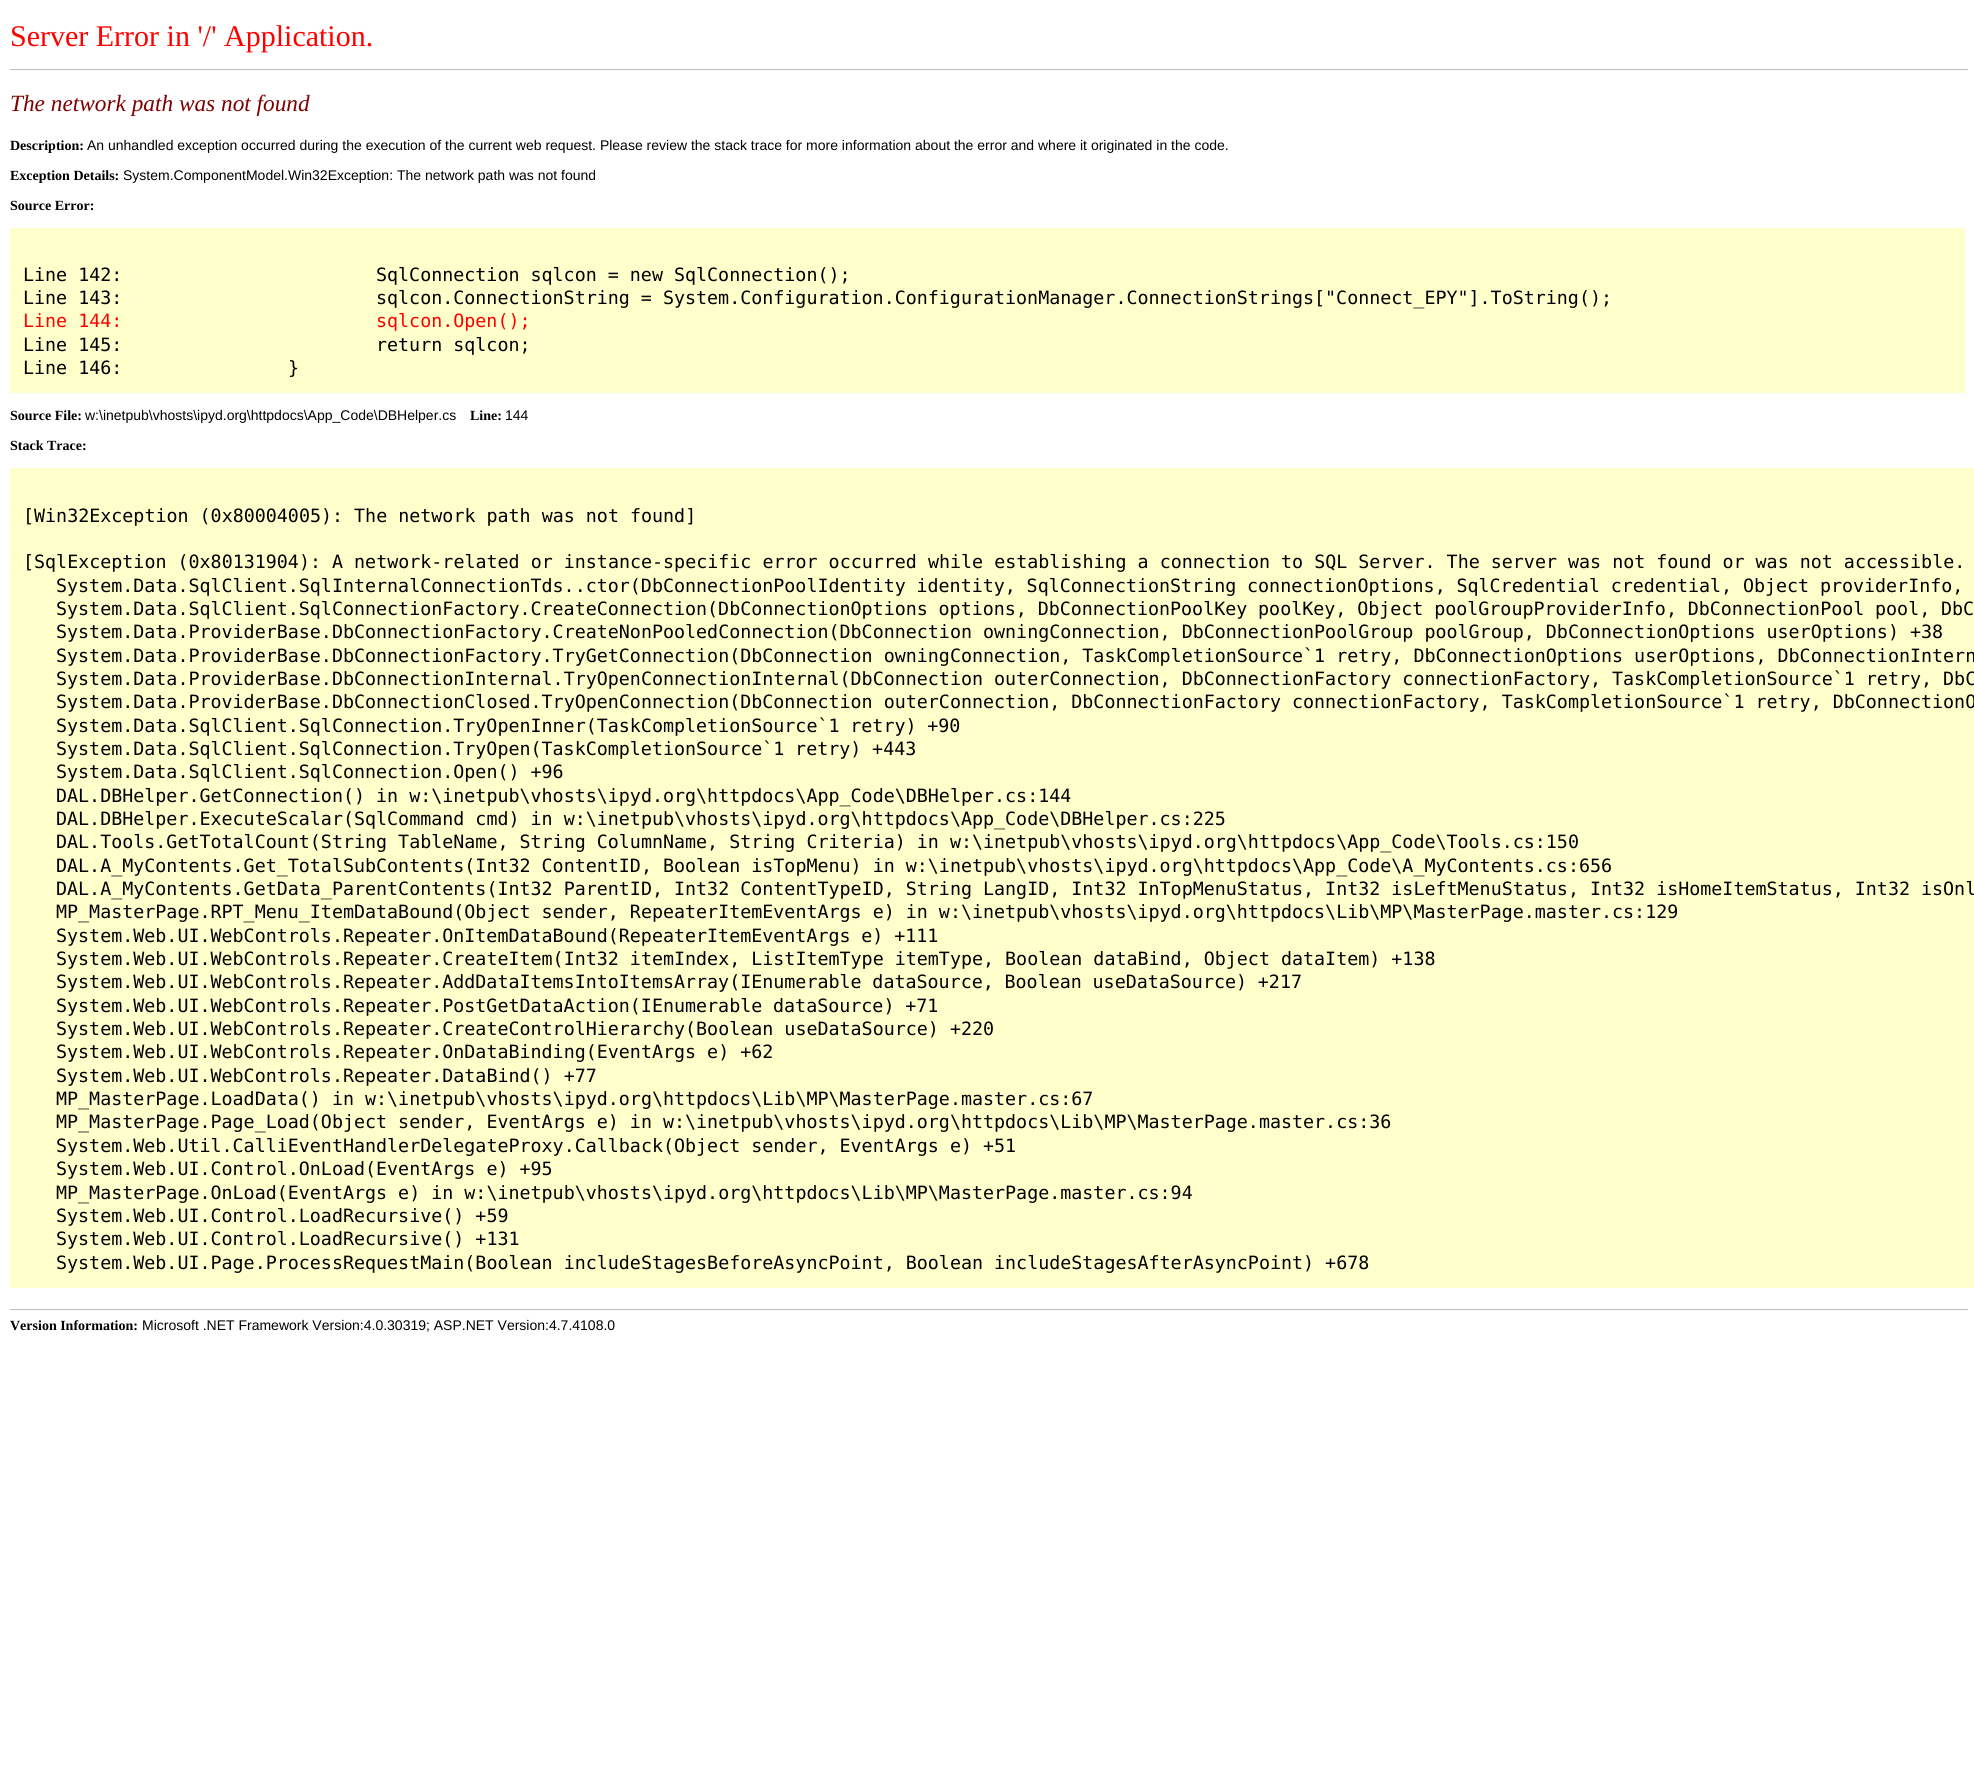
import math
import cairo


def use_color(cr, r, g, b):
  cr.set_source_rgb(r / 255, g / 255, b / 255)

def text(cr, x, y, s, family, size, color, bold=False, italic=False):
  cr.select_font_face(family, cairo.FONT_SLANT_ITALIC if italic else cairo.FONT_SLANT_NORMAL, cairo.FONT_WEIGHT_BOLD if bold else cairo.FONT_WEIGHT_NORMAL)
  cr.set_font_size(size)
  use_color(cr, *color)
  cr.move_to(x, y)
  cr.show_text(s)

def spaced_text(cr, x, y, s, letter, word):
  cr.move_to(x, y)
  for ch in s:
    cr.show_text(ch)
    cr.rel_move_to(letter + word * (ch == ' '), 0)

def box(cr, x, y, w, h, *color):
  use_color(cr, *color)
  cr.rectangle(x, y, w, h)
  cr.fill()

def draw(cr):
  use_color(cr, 255, 255, 255)
  cr.paint()
  box(cr, 10, 69, 1958, 1, 192, 192, 192)
  box(cr, 10, 228, 1955, 165, 255, 255, 204)
  box(cr, 10, 468, 1964, 820, 255, 255, 204)
  box(cr, 10, 1309, 1958, 1, 192, 192, 192)
  text(cr, 10, 46, "Server Error in '/' Application.", "Liberation Serif", 30, (255, 0, 0))
  text(cr, 10, 111, "The network path was not found", "Liberation Serif", 23.3, (128, 0, 0), italic=True)
  text(cr, 10, 150, "Description:", "Liberation Serif", 14, (0, 0, 0), bold=True)
  text(cr, 87, 150, "An unhandled exception occurred during the execution of the current web request. Please review the stack trace for more information about the error and where it originated in the code.", "Liberation Sans", 14, (0, 0, 0))
  text(cr, 10, 180, "Exception Details:", "Liberation Serif", 14, (0, 0, 0), bold=True)
  text(cr, 123, 180, "System.ComponentModel.Win32Exception: The network path was not found", "Liberation Sans", 14, (0, 0, 0))
  text(cr, 10, 210, "Source Error:", "Liberation Serif", 14, (0, 0, 0), bold=True)
  text(cr, 23, 281, "Line 142:", "DejaVu Sans Mono", 18.33, (0, 0, 0))
  text(cr, 376, 281, "SqlConnection sqlcon = new SqlConnection();", "DejaVu Sans Mono", 18.33, (0, 0, 0))
  text(cr, 23, 304, "Line 143:", "DejaVu Sans Mono", 18.33, (0, 0, 0))
  text(cr, 376, 304, "sqlcon.ConnectionString = System.Configuration.ConfigurationManager.ConnectionStrings[\"Connect_EPY\"].ToString();", "DejaVu Sans Mono", 18.33, (0, 0, 0))
  text(cr, 23, 327, "Line 144:", "DejaVu Sans Mono", 18.33, (255, 0, 0))
  text(cr, 376, 327, "sqlcon.Open();", "DejaVu Sans Mono", 18.33, (255, 0, 0))
  text(cr, 23, 351, "Line 145:", "DejaVu Sans Mono", 18.33, (0, 0, 0))
  text(cr, 376, 351, "return sqlcon;", "DejaVu Sans Mono", 18.33, (0, 0, 0))
  text(cr, 23, 374, "Line 146:", "DejaVu Sans Mono", 18.33, (0, 0, 0))
  text(cr, 288, 374, "}", "DejaVu Sans Mono", 18.33, (0, 0, 0))
  text(cr, 10, 420, "Source File:", "Liberation Serif", 14, (0, 0, 0), bold=True)
  text(cr, 85, 420, "w:\\inetpub\\vhosts\\ipyd.org\\httpdocs\\App_Code\\DBHelper.cs", "Liberation Sans", 14, (0, 0, 0))
  text(cr, 470, 420, "Line:", "Liberation Serif", 14, (0, 0, 0), bold=True)
  text(cr, 505, 420, "144", "Liberation Sans", 14, (0, 0, 0))
  text(cr, 10, 450, "Stack Trace:", "Liberation Serif", 14, (0, 0, 0), bold=True)
  text(cr, 23, 522, "[Win32Exception (0x80004005): The network path was not found]", "DejaVu Sans Mono", 18.33, (0, 0, 0))
  text(cr, 23, 568, "[SqlException (0x80131904): A network-related or instance-specific error occurred while establishing a connection to SQL Server. The server was not found or was not accessible.", "DejaVu Sans Mono", 18.33, (0, 0, 0))
  spaced_text(cr, 56, 592, "System.Data.SqlClient.SqlInternalConnectionTds..ctor(DbConnectionPoolIdentity identity, SqlConnectionString connectionOptions, SqlCredential credential, Object providerInfo,", 0, -0.25)
  spaced_text(cr, 56, 615, "System.Data.SqlClient.SqlConnectionFactory.CreateConnection(DbConnectionOptions options, DbConnectionPoolKey poolKey, Object poolGroupProviderInfo, DbConnectionPool pool, DbC", 0, -0.25)
  text(cr, 56, 638, "System.Data.ProviderBase.DbConnectionFactory.CreateNonPooledConnection(DbConnection owningConnection, DbConnectionPoolGroup poolGroup, DbConnectionOptions userOptions) +38", "DejaVu Sans Mono", 18.33, (0, 0, 0))
  text(cr, 56, 662, "System.Data.ProviderBase.DbConnectionFactory.TryGetConnection(DbConnection owningConnection, TaskCompletionSource`1 retry, DbConnectionOptions userOptions, DbConnectionIntern", "DejaVu Sans Mono", 18.33, (0, 0, 0))
  text(cr, 56, 685, "System.Data.ProviderBase.DbConnectionInternal.TryOpenConnectionInternal(DbConnection outerConnection, DbConnectionFactory connectionFactory, TaskCompletionSource`1 retry, DbC", "DejaVu Sans Mono", 18.33, (0, 0, 0))
  text(cr, 56, 708, "System.Data.ProviderBase.DbConnectionClosed.TryOpenConnection(DbConnection outerConnection, DbConnectionFactory connectionFactory, TaskCompletionSource`1 retry, DbConnectionO", "DejaVu Sans Mono", 18.33, (0, 0, 0))
  spaced_text(cr, 56, 732, "System.Data.SqlClient.SqlConnection.TryOpenInner(TaskCompletionSource`1 retry) +90", 0, -0.25)
  spaced_text(cr, 56, 755, "System.Data.SqlClient.SqlConnection.TryOpen(TaskCompletionSource`1 retry) +443", 0, -0.25)
  text(cr, 56, 778, "System.Data.SqlClient.SqlConnection.Open() +96", "DejaVu Sans Mono", 18.33, (0, 0, 0))
  text(cr, 56, 802, "DAL.DBHelper.GetConnection() in w:\\inetpub\\vhosts\\ipyd.org\\httpdocs\\App_Code\\DBHelper.cs:144", "DejaVu Sans Mono", 18.33, (0, 0, 0))
  text(cr, 56, 825, "DAL.DBHelper.ExecuteScalar(SqlCommand cmd) in w:\\inetpub\\vhosts\\ipyd.org\\httpdocs\\App_Code\\DBHelper.cs:225", "DejaVu Sans Mono", 18.33, (0, 0, 0))
  text(cr, 56, 848, "DAL.Tools.GetTotalCount(String TableName, String ColumnName, String Criteria) in w:\\inetpub\\vhosts\\ipyd.org\\httpdocs\\App_Code\\Tools.cs:150", "DejaVu Sans Mono", 18.33, (0, 0, 0))
  text(cr, 56, 872, "DAL.A_MyContents.Get_TotalSubContents(Int32 ContentID, Boolean isTopMenu) in w:\\inetpub\\vhosts\\ipyd.org\\httpdocs\\App_Code\\A_MyContents.cs:656", "DejaVu Sans Mono", 18.33, (0, 0, 0))
  text(cr, 56, 895, "DAL.A_MyContents.GetData_ParentContents(Int32 ParentID, Int32 ContentTypeID, String LangID, Int32 InTopMenuStatus, Int32 isLeftMenuStatus, Int32 isHomeItemStatus, Int32 isOnl", "DejaVu Sans Mono", 18.33, (0, 0, 0))
  text(cr, 56, 918, "MP_MasterPage.RPT_Menu_ItemDataBound(Object sender, RepeaterItemEventArgs e) in w:\\inetpub\\vhosts\\ipyd.org\\httpdocs\\Lib\\MP\\MasterPage.master.cs:129", "DejaVu Sans Mono", 18.33, (0, 0, 0))
  spaced_text(cr, 56, 942, "System.Web.UI.WebControls.Repeater.OnItemDataBound(RepeaterItemEventArgs e) +111", 0, -0.25)
  text(cr, 56, 965, "System.Web.UI.WebControls.Repeater.CreateItem(Int32 itemIndex, ListItemType itemType, Boolean dataBind, Object dataItem) +138", "DejaVu Sans Mono", 18.33, (0, 0, 0))
  spaced_text(cr, 56, 988, "System.Web.UI.WebControls.Repeater.AddDataItemsIntoItemsArray(IEnumerable dataSource, Boolean useDataSource) +217", 0, -0.25)
  spaced_text(cr, 56, 1012, "System.Web.UI.WebControls.Repeater.PostGetDataAction(IEnumerable dataSource) +71", 0, -0.25)
  text(cr, 56, 1035, "System.Web.UI.WebControls.Repeater.CreateControlHierarchy(Boolean useDataSource) +220", "DejaVu Sans Mono", 18.33, (0, 0, 0))
  text(cr, 56, 1058, "System.Web.UI.WebControls.Repeater.OnDataBinding(EventArgs e) +62", "DejaVu Sans Mono", 18.33, (0, 0, 0))
  text(cr, 56, 1082, "System.Web.UI.WebControls.Repeater.DataBind() +77", "DejaVu Sans Mono", 18.33, (0, 0, 0))
  text(cr, 56, 1105, "MP_MasterPage.LoadData() in w:\\inetpub\\vhosts\\ipyd.org\\httpdocs\\Lib\\MP\\MasterPage.master.cs:67", "DejaVu Sans Mono", 18.33, (0, 0, 0))
  text(cr, 56, 1128, "MP_MasterPage.Page_Load(Object sender, EventArgs e) in w:\\inetpub\\vhosts\\ipyd.org\\httpdocs\\Lib\\MP\\MasterPage.master.cs:36", "DejaVu Sans Mono", 18.33, (0, 0, 0))
  text(cr, 56, 1152, "System.Web.Util.CalliEventHandlerDelegateProxy.Callback(Object sender, EventArgs e) +51", "DejaVu Sans Mono", 18.33, (0, 0, 0))
  text(cr, 56, 1175, "System.Web.UI.Control.OnLoad(EventArgs e) +95", "DejaVu Sans Mono", 18.33, (0, 0, 0))
  text(cr, 56, 1199, "MP_MasterPage.OnLoad(EventArgs e) in w:\\inetpub\\vhosts\\ipyd.org\\httpdocs\\Lib\\MP\\MasterPage.master.cs:94", "DejaVu Sans Mono", 18.33, (0, 0, 0))
  text(cr, 56, 1222, "System.Web.UI.Control.LoadRecursive() +59", "DejaVu Sans Mono", 18.33, (0, 0, 0))
  text(cr, 56, 1245, "System.Web.UI.Control.LoadRecursive() +131", "DejaVu Sans Mono", 18.33, (0, 0, 0))
  text(cr, 56, 1269, "System.Web.UI.Page.ProcessRequestMain(Boolean includeStagesBeforeAsyncPoint, Boolean includeStagesAfterAsyncPoint) +678", "DejaVu Sans Mono", 18.33, (0, 0, 0))
  text(cr, 10, 1330, "Version Information:", "Liberation Serif", 14, (0, 0, 0), bold=True)
  text(cr, 142, 1330, "Microsoft .NET Framework Version:4.0.30319; ASP.NET Version:4.7.4108.0", "Liberation Sans", 14, (0, 0, 0))


surface = cairo.ImageSurface(cairo.FORMAT_RGB24, 1974, 1788)
cr = cairo.Context(surface)
options = cairo.FontOptions()
options.set_hint_metrics(cairo.HINT_METRICS_OFF)
options.set_hint_style(cairo.HINT_STYLE_NONE)
cr.set_font_options(options)
cr.set_miter_limit(4)
draw(cr)
surface.write_to_png("out.png")
